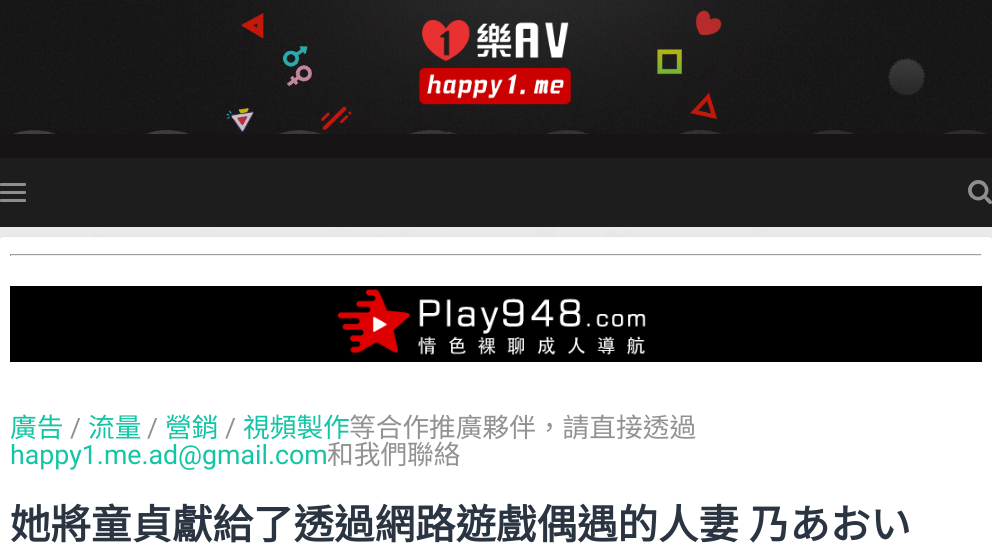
import math
import cairo


def use_color(cr, r, g, b):
  cr.set_source_rgb(r / 255, g / 255, b / 255)

def text(cr, x, y, s, family, size, color, bold=False, italic=False):
  cr.select_font_face(family, cairo.FONT_SLANT_ITALIC if italic else cairo.FONT_SLANT_NORMAL, cairo.FONT_WEIGHT_BOLD if bold else cairo.FONT_WEIGHT_NORMAL)
  cr.set_font_size(size)
  use_color(cr, *color)
  cr.move_to(x, y)
  cr.show_text(s)

def spaced_text(cr, x, y, s, letter, word):
  cr.move_to(x, y)
  for ch in s:
    cr.show_text(ch)
    cr.rel_move_to(letter + word * (ch == ' '), 0)

def box(cr, x, y, w, h, *color):
  use_color(cr, *color)
  cr.rectangle(x, y, w, h)
  cr.fill()

def round_rect(cr, x, y, w, h, r):
  cr.new_sub_path()
  for i, (u, v) in enumerate([(x + w - r, y + h - r), (x + r, y + h - r), (x + r, y + r), (x + w - r, y + r)]):
    cr.arc(u, v, r, i * math.pi / 2, (i + 1) * math.pi / 2)
  cr.close_path()

def shadow(cr, x, y, w, h, r, blur, alpha):
  cr.push_group_with_content(cairo.CONTENT_ALPHA)
  cr.set_operator(cairo.OPERATOR_SOURCE)
  for i in range(15, -16, -2):
    e = blur * i / 6
    if min(w, h) + 2 * e > 0:
      cr.set_source_rgba(0, 0, 0, alpha * math.erfc((i - 1) / 8.5) / 2)
      round_rect(cr, x - e, y - e, w + 2 * e, h + 2 * e, max(0, min(r + e + blur * .6, min(w, h) / 2 + e)))
      cr.fill()
  cr.mask(cr.pop_group())

def picture(cr, path, x, y, w, h):
  cr.save()
  cr.set_source_surface(cairo.ImageSurface.create_from_png(path), x, y)
  cr.rectangle(x, y, w, h)
  cr.fill()
  cr.restore()

def draw(cr):
  use_color(cr, 255, 255, 255)
  cr.paint()
  picture(cr, "img_01.png", 0, 227, 992, 13)
  picture(cr, "img_02.png", 0, 0, 992, 134)
  picture(cr, "img_03.png", 418, 20, 153, 85)
  box(cr, 0, 134, 992, 24, 22, 20, 20)
  box(cr, 0, 158, 992, 69, 29, 29, 29)
  use_color(cr, 142, 142, 142)
  round_rect(cr, 0, 183, 26, 3, 1)
  cr.fill()
  round_rect(cr, 0, 191, 26, 3, 1)
  cr.fill()
  round_rect(cr, 0, 199, 26, 3, 1)
  cr.fill()
  picture(cr, "img_04.png", 968, 180, 24, 24)
  use_color(cr, 0, 0, 0)
  shadow(cr, 0, 238, 992, 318, 3, 2, 0.1)
  use_color(cr, 255, 255, 255)
  round_rect(cr, 0, 237, 992, 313, 3)
  cr.fill()
  box(cr, 10, 254, 972, 1, 159, 159, 159)
  box(cr, 981, 254, 1, 2, 238, 238, 238)
  box(cr, 10, 255, 972, 1, 238, 238, 238)
  box(cr, 10, 254, 1, 2, 159, 159, 159)
  box(cr, 10, 286, 972, 76, 0, 0, 0)
  picture(cr, "img_05.png", 337, 289, 309, 66)
  text(cr, 10, 437, "廣告", "Noto Sans CJK TC", 26.7, (19, 196, 165))
  text(cr, 70, 437, "/", "Roboto", 26.7, (146, 146, 146))
  text(cr, 88, 437, "流量", "Noto Sans CJK TC", 26.7, (19, 196, 165))
  text(cr, 147, 437, "/", "Roboto", 26.7, (146, 146, 146))
  text(cr, 165, 437, "營銷", "Noto Sans CJK TC", 26.7, (19, 196, 165))
  text(cr, 225, 437, "/", "Roboto", 26.7, (146, 146, 146))
  text(cr, 243, 437, "視頻製作", "Noto Sans CJK TC", 26.7, (19, 196, 165))
  text(cr, 349, 437, "等合作推廣夥伴，請直接透過", "Noto Sans CJK TC", 26.7, (146, 146, 146))
  text(cr, 10, 464, "happy1.me.ad@gmail.com", "Roboto", 26.7, (19, 196, 165))
  text(cr, 327, 464, "和我們聯絡", "Noto Sans CJK TC", 26.7, (146, 146, 146))
  cr.select_font_face("Noto Sans CJK TC", cairo.FONT_SLANT_NORMAL, cairo.FONT_WEIGHT_BOLD)
  cr.set_font_size(40.5)
  use_color(cr, 43, 53, 66)
  spaced_text(cr, 10, 539, "她將童貞獻給了透過網路遊戲偶遇的人妻 乃あおい", 0, 1)


surface = cairo.ImageSurface(cairo.FORMAT_RGB24, 992, 547)
cr = cairo.Context(surface)
options = cairo.FontOptions()
options.set_hint_metrics(cairo.HINT_METRICS_OFF)
options.set_hint_style(cairo.HINT_STYLE_NONE)
cr.set_font_options(options)
cr.set_miter_limit(4)
draw(cr)
surface.write_to_png("out.png")
